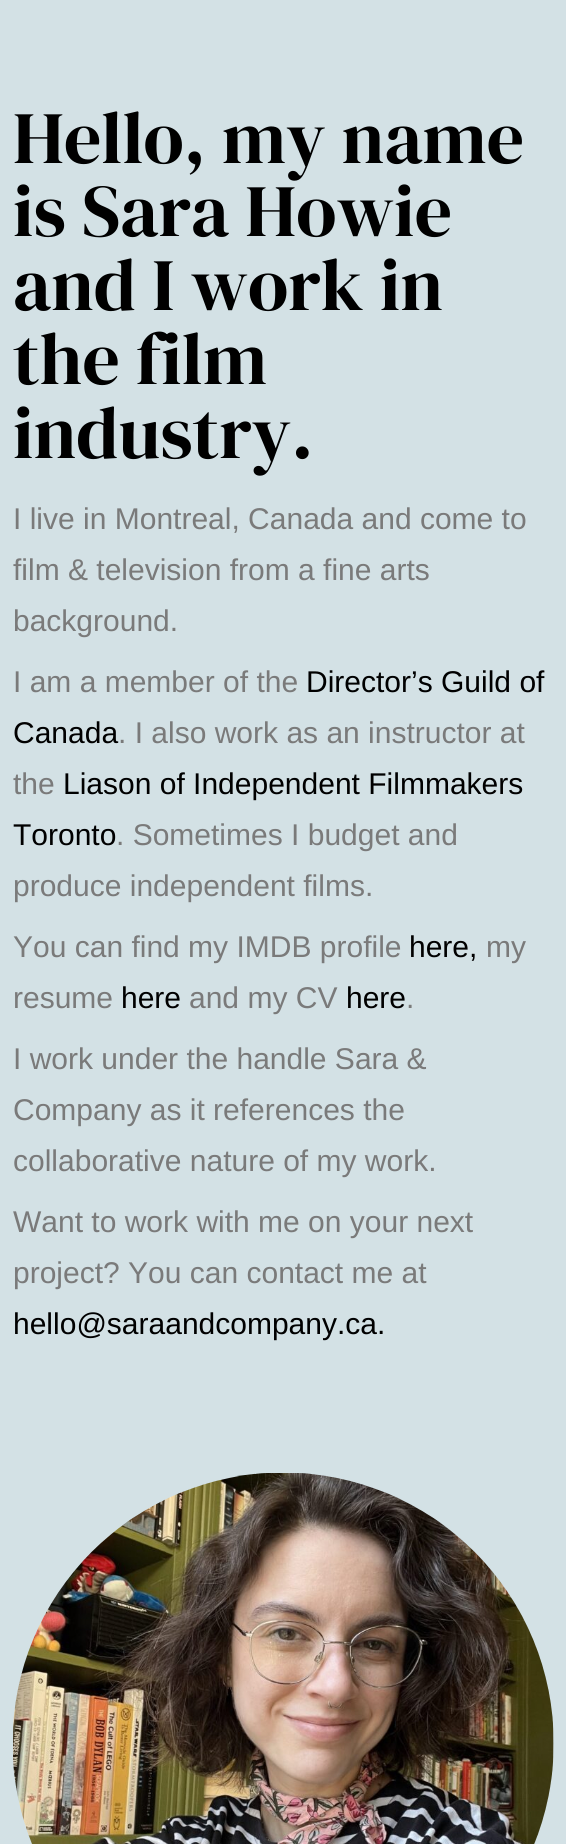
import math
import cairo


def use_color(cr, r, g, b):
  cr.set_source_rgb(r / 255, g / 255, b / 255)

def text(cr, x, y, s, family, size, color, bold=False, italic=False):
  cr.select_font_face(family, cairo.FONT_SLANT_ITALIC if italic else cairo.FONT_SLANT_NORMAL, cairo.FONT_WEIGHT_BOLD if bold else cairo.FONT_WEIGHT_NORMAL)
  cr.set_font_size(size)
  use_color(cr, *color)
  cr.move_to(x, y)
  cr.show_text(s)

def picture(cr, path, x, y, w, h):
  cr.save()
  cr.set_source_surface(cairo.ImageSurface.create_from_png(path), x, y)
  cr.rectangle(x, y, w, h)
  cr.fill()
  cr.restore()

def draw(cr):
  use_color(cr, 211, 225, 229)
  cr.paint()
  picture(cr, "img_01.png", 13, 1473, 541, 371)
  text(cr, 13, 163, "Hello, my name", "DM Serif Display", 73.75, (0, 0, 0))
  text(cr, 13, 236, "is Sara Howie", "DM Serif Display", 73.75, (0, 0, 0))
  text(cr, 13, 310, "and I work in", "DM Serif Display", 73.75, (0, 0, 0))
  text(cr, 13, 384, "the film", "DM Serif Display", 73.75, (0, 0, 0))
  text(cr, 13, 458, "industry.", "DM Serif Display", 73.75, (0, 0, 0))
  text(cr, 13, 529, "I live in Montreal, Canada and come to", "Liberation Sans", 30, (122, 122, 122))
  text(cr, 13, 580, "film & television from a fine arts", "Liberation Sans", 30, (122, 122, 122))
  text(cr, 13, 631, "background.", "Liberation Sans", 30, (122, 122, 122))
  text(cr, 13, 692, "I am a member of the", "Liberation Sans", 30, (122, 122, 122))
  text(cr, 306, 692, "Director’s Guild of", "Liberation Sans", 30, (0, 0, 0))
  text(cr, 13, 743, "Canada", "Liberation Sans", 30, (0, 0, 0))
  text(cr, 118, 743, ". I also work as an instructor at", "Liberation Sans", 30, (122, 122, 122))
  text(cr, 13, 794, "the", "Liberation Sans", 30, (122, 122, 122))
  text(cr, 63, 794, "Liason of Independent Filmmakers", "Liberation Sans", 30, (0, 0, 0))
  text(cr, 13, 845, "Toronto", "Liberation Sans", 30, (0, 0, 0))
  text(cr, 116, 845, ". Sometimes I budget and", "Liberation Sans", 30, (122, 122, 122))
  text(cr, 13, 896, "produce independent films.", "Liberation Sans", 30, (122, 122, 122))
  text(cr, 13, 957, "You can find my IMDB profile", "Liberation Sans", 30, (122, 122, 122))
  text(cr, 409, 957, "here,", "Liberation Sans", 30, (0, 0, 0))
  text(cr, 486, 957, "my", "Liberation Sans", 30, (122, 122, 122))
  text(cr, 13, 1008, "resume", "Liberation Sans", 30, (122, 122, 122))
  text(cr, 121, 1008, "here", "Liberation Sans", 30, (0, 0, 0))
  text(cr, 189, 1008, "and my CV", "Liberation Sans", 30, (122, 122, 122))
  text(cr, 346, 1008, "here", "Liberation Sans", 30, (0, 0, 0))
  text(cr, 406, 1008, ".", "Liberation Sans", 30, (122, 122, 122))
  text(cr, 13, 1069, "I work under the handle Sara &", "Liberation Sans", 30, (122, 122, 122))
  text(cr, 13, 1120, "Company as it references the", "Liberation Sans", 30, (122, 122, 122))
  text(cr, 13, 1171, "collaborative nature of my work.", "Liberation Sans", 30, (122, 122, 122))
  text(cr, 13, 1232, "Want to work with me on your next", "Liberation Sans", 30, (122, 122, 122))
  text(cr, 13, 1283, "project? You can contact me at", "Liberation Sans", 30, (122, 122, 122))
  text(cr, 13, 1334, "hello@saraandcompany.ca.", "Liberation Sans", 30, (0, 0, 0))


surface = cairo.ImageSurface(cairo.FORMAT_RGB24, 566, 1844)
cr = cairo.Context(surface)
options = cairo.FontOptions()
options.set_hint_metrics(cairo.HINT_METRICS_OFF)
options.set_hint_style(cairo.HINT_STYLE_NONE)
cr.set_font_options(options)
cr.set_miter_limit(4)
draw(cr)
surface.write_to_png("out.png")
